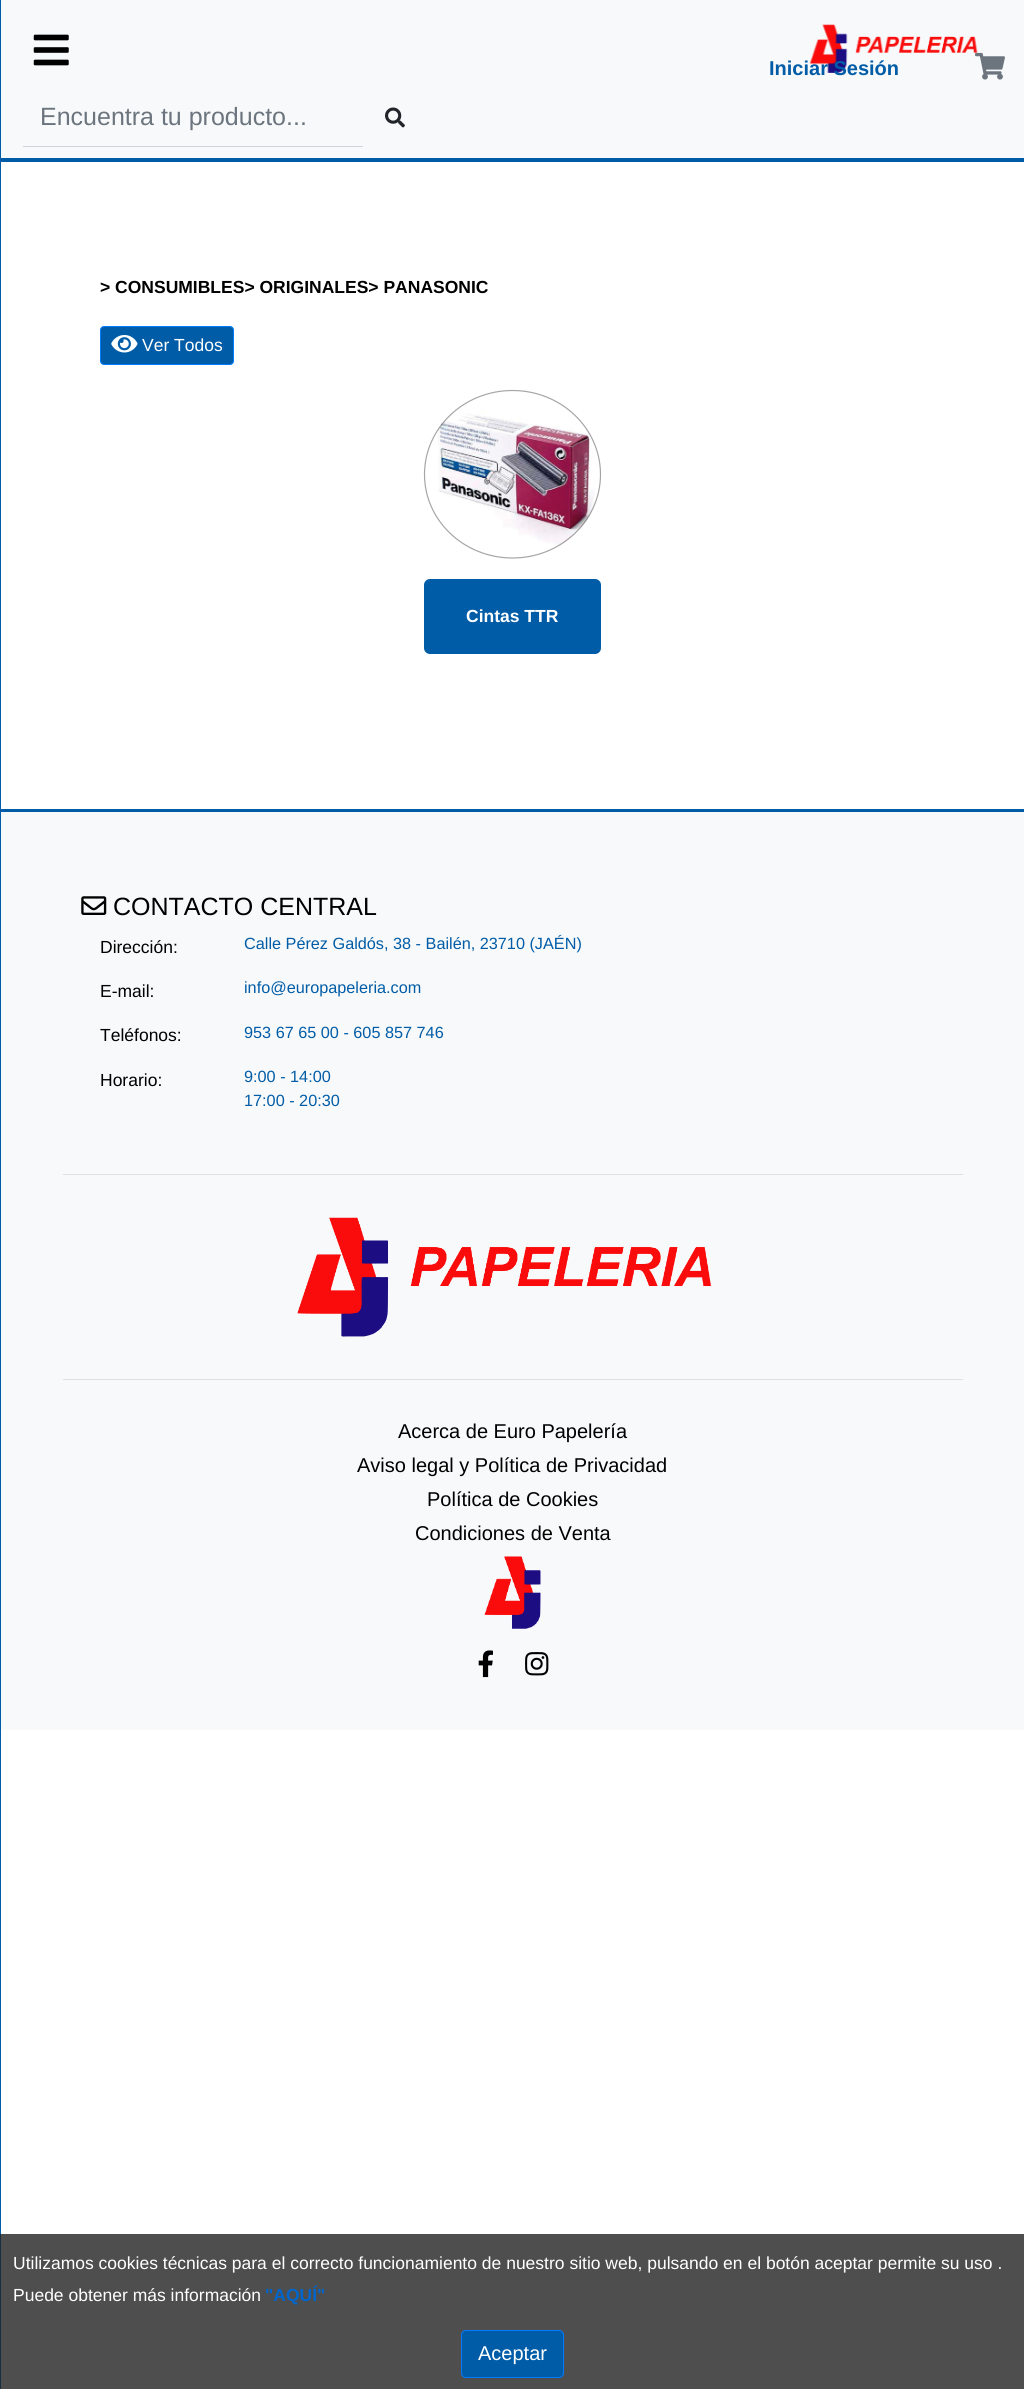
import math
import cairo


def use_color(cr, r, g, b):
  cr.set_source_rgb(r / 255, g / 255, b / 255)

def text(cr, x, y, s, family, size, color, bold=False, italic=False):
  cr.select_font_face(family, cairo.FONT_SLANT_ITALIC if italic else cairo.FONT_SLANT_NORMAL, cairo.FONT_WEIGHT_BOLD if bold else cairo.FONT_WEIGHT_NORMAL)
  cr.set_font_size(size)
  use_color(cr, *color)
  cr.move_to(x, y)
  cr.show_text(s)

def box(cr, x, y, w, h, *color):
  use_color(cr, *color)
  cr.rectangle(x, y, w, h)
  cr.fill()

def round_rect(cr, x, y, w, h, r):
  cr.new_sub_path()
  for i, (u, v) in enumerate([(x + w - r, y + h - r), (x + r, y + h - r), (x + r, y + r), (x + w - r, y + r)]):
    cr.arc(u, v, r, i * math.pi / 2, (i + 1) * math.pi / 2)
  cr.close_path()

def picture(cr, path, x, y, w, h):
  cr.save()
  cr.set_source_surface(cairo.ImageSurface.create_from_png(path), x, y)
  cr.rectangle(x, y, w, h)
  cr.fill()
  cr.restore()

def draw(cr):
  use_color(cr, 255, 255, 255)
  cr.paint()
  box(cr, 1, 2234, 1023, 155, 78, 78, 78)
  box(cr, 0, 158, 1024, 4, 0, 92, 167)
  box(cr, 0, 809, 1024, 3, 0, 92, 167)
  box(cr, 0, 0, 1, 2234, 0, 92, 167)
  box(cr, 0, 2234, 1, 155, 27, 46, 61)
  box(cr, 1, 0, 1023, 158, 248, 249, 250)
  picture(cr, "img_01.png", 33, 34, 36, 32)
  picture(cr, "img_02.png", 809, 24, 169, 49)
  picture(cr, "img_03.png", 975, 52, 30, 28)
  box(cr, 23, 146, 340, 1, 206, 212, 218)
  picture(cr, "img_04.png", 385, 107, 20, 21)
  use_color(cr, 0, 92, 167)
  round_rect(cr, 100.5, 326.5, 133, 38, 3.5)
  cr.fill_preserve()
  use_color(cr, 0, 123, 255)
  cr.set_line_width(1)
  cr.stroke()
  picture(cr, "img_05.png", 111, 335, 27, 18)
  picture(cr, "img_06.png", 437, 410, 158, 136)
  cr.new_path()
  cr.move_to(512.5, 390.5)
  cr.curve_to(561, 390.5, 600.5, 428, 600.5, 474.5)
  cr.curve_to(600.5, 520.5, 561, 558, 512.5, 558)
  cr.curve_to(464, 558, 424.5, 520.5, 424.5, 474.5)
  cr.curve_to(424.5, 428, 464, 390.5, 512.5, 390.5)
  cr.close_path()
  cr.set_source_rgba(0, 0, 0, 0.35)
  cr.set_line_width(1.2)
  cr.stroke()
  use_color(cr, 0, 92, 167)
  round_rect(cr, 424, 579, 177, 75, 6)
  cr.fill()
  box(cr, 1, 812, 1023, 918, 248, 249, 250)
  picture(cr, "img_07.png", 81, 896, 26, 19)
  box(cr, 63, 1174, 900, 1, 223, 224, 225)
  picture(cr, "img_08.png", 297, 1217, 414, 120)
  box(cr, 63, 1379, 900, 1, 223, 224, 225)
  picture(cr, "img_09.png", 484, 1556, 57, 73)
  picture(cr, "img_10.png", 478, 1650, 15, 28)
  picture(cr, "img_11.png", 525, 1652, 24, 24)
  use_color(cr, 0, 92, 167)
  round_rect(cr, 461.5, 2330.5, 102, 47, 4.5)
  cr.fill_preserve()
  use_color(cr, 0, 123, 255)
  cr.set_line_width(1)
  cr.stroke()
  text(cr, 769, 75, "Iniciar Sesión", "Liberation Sans", 20, (0, 92, 167), bold=True)
  text(cr, 40, 125, "Encuentra tu producto...", "Liberation Sans", 25, (108, 117, 125))
  text(cr, 100, 293, "> CONSUMIBLES> ORIGINALES> PANASONIC", "Liberation Sans", 17.5, (0, 0, 0), bold=True)
  text(cr, 142, 351, "Ver Todos", "Liberation Sans", 17.5, (255, 255, 255))
  text(cr, 466, 622, "Cintas TTR", "Liberation Sans", 17.5, (255, 255, 255), bold=True)
  text(cr, 113, 915, "CONTACTO CENTRAL", "Liberation Sans", 25, (0, 0, 0))
  text(cr, 100, 953, "Dirección:", "Liberation Sans", 17.5, (0, 0, 0))
  text(cr, 244, 949, "Calle Pérez Galdós, 38 - Bailén, 23710 (JAÉN)", "Liberation Sans", 16.25, (0, 92, 167))
  text(cr, 100, 997, "E-mail:", "Liberation Sans", 17.5, (0, 0, 0))
  text(cr, 244, 993, "info@europapeleria.com", "Liberation Sans", 16.25, (0, 92, 167))
  text(cr, 100, 1041, "Teléfonos:", "Liberation Sans", 17.5, (0, 0, 0))
  text(cr, 244, 1038, "953 67 65 00 - 605 857 746", "Liberation Sans", 16.25, (0, 92, 167))
  text(cr, 100, 1086, "Horario:", "Liberation Sans", 17.5, (0, 0, 0))
  text(cr, 244, 1082, "9:00 - 14:00", "Liberation Sans", 16.25, (0, 92, 167))
  text(cr, 244, 1106, "17:00 - 20:30", "Liberation Sans", 16.25, (0, 92, 167))
  text(cr, 398, 1438, "Acerca de Euro Papelería", "Liberation Sans", 20, (0, 0, 0))
  text(cr, 357, 1472, "Aviso legal y Política de Privacidad", "Liberation Sans", 20, (0, 0, 0))
  text(cr, 427, 1506, "Política de Cookies", "Liberation Sans", 20, (0, 0, 0))
  text(cr, 415, 1540, "Condiciones de Venta", "Liberation Sans", 20, (0, 0, 0))
  text(cr, 13, 2269, "Utilizamos cookies técnicas para el correcto funcionamiento de nuestro sitio web, pulsando en el botón aceptar permite su uso .", "Liberation Sans", 17.5, (255, 255, 255))
  text(cr, 13, 2301, "Puede obtener más información", "Liberation Sans", 17.5, (255, 255, 255))
  text(cr, 265, 2301, "\"AQUÍ\"", "Liberation Sans", 17.5, (0, 102, 204), bold=True)
  text(cr, 478, 2360, "Aceptar", "Liberation Sans", 20, (255, 255, 255))


surface = cairo.ImageSurface(cairo.FORMAT_RGB24, 1024, 2389)
cr = cairo.Context(surface)
options = cairo.FontOptions()
options.set_hint_metrics(cairo.HINT_METRICS_OFF)
options.set_hint_style(cairo.HINT_STYLE_NONE)
cr.set_font_options(options)
cr.set_miter_limit(4)
draw(cr)
surface.write_to_png("out.png")
